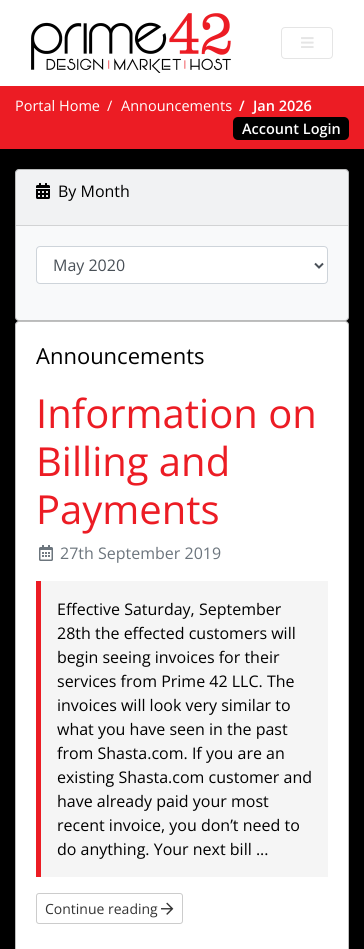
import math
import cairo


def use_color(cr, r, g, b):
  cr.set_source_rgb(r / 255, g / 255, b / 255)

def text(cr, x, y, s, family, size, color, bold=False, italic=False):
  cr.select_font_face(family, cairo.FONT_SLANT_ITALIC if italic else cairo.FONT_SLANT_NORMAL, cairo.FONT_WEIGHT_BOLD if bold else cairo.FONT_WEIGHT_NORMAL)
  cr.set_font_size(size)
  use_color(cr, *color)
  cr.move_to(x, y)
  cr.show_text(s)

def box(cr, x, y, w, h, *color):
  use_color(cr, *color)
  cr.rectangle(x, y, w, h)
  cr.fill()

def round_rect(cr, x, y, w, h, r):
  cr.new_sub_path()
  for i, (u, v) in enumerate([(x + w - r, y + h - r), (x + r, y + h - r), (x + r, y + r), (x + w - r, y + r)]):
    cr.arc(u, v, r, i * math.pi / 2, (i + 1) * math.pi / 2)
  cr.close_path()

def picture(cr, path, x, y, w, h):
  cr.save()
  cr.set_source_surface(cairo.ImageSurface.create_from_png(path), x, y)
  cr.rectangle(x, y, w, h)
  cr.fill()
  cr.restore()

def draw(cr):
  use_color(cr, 0, 0, 0)
  cr.paint()
  box(cr, 0, 0, 364, 86, 255, 255, 255)
  picture(cr, "img_01.png", 31, 13, 200, 60)
  round_rect(cr, 281.5, 27.5, 51, 31, 3.5)
  use_color(cr, 229, 229, 229)
  cr.set_line_width(1)
  cr.stroke()
  picture(cr, "img_02.png", 301, 37, 13, 11)
  box(cr, 0, 86, 364, 63, 236, 28, 36)
  use_color(cr, 0, 0, 0)
  round_rect(cr, 233, 117, 116, 23, 5)
  cr.fill()
  use_color(cr, 248, 249, 250)
  round_rect(cr, 15, 169, 334, 152, 4)
  cr.fill()
  round_rect(cr, 15.5, 169.5, 333, 151, 3.5)
  cr.set_source_rgba(0, 0, 0, 0.25)
  cr.stroke()
  cr.set_source_rgba(0, 0, 0, 0.03)
  cr.rectangle(16, 170, 332, 55)
  cr.fill()
  box(cr, 16, 225, 332, 1, 210, 211, 212)
  picture(cr, "img_03.png", 36, 183, 14, 16)
  use_color(cr, 255, 255, 255)
  round_rect(cr, 36.5, 246.5, 291, 37, 3.5)
  cr.fill_preserve()
  use_color(cr, 206, 212, 218)
  cr.stroke()
  cr.new_path()
  cr.move_to(315, 263.5)
  cr.line_to(319, 267.5)
  cr.line_to(323, 263.5)
  use_color(cr, 73, 80, 87)
  cr.set_line_width(2)
  cr.stroke()
  use_color(cr, 255, 255, 255)
  round_rect(cr, 15, 321, 334, 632, 4)
  cr.fill()
  round_rect(cr, 15.5, 321.5, 333, 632, 3.5)
  cr.set_source_rgba(0, 0, 0, 0.25)
  cr.set_line_width(1)
  cr.stroke()
  picture(cr, "img_04.png", 39, 545, 14, 16)
  box(cr, 41, 581, 287, 296, 245, 245, 245)
  box(cr, 36, 581, 5, 296, 236, 28, 36)
  round_rect(cr, 36.5, 893.5, 146, 30, 2.5)
  use_color(cr, 204, 204, 204)
  cr.stroke()
  picture(cr, "img_05.png", 161, 902, 13, 13)
  text(cr, 15, 111, "Portal Home", "Open Sans", 14.5, (255, 255, 255))
  text(cr, 107, 111, "/", "Open Sans", 14.5, (255, 255, 255))
  text(cr, 121, 111, "Announcements", "Open Sans", 14.5, (255, 255, 255))
  text(cr, 239, 111, "/", "Open Sans SemiBold", 14.5, (255, 255, 255))
  text(cr, 253, 111, "Jan 2026", "Open Sans SemiBold", 14.5, (255, 255, 255))
  text(cr, 242, 134, "Account Login", "Open Sans SemiBold", 14.5, (255, 255, 255))
  text(cr, 58, 197, "By Month", "Open Sans", 16, (0, 0, 0))
  text(cr, 53, 271, "May 2020", "Open Sans", 16, (73, 80, 87))
  text(cr, 36, 364, "Announcements", "Open Sans", 22, (0, 0, 0))
  text(cr, 36, 428, "Information on", "Open Sans", 40, (236, 28, 36))
  text(cr, 36, 476, "Billing and", "Open Sans", 40, (236, 28, 36))
  text(cr, 36, 524, "Payments", "Open Sans", 40, (236, 28, 36))
  text(cr, 60, 559, "27th September 2019", "Open Sans", 16, (108, 117, 125))
  text(cr, 57, 615, "Effective Saturday, September", "Open Sans", 16, (0, 0, 0))
  text(cr, 57, 639, "28th the effected customers will", "Open Sans", 16, (0, 0, 0))
  text(cr, 57, 663, "begin seeing invoices for their", "Open Sans", 16, (0, 0, 0))
  text(cr, 57, 687, "services from Prime 42 LLC. The", "Open Sans", 16, (0, 0, 0))
  text(cr, 57, 711, "invoices will look very similar to", "Open Sans", 16, (0, 0, 0))
  text(cr, 57, 735, "what you have seen in the past", "Open Sans", 16, (0, 0, 0))
  text(cr, 57, 759, "from Shasta.com. If you are an", "Open Sans", 16, (0, 0, 0))
  text(cr, 57, 783, "existing Shasta.com customer and", "Open Sans", 16, (0, 0, 0))
  text(cr, 57, 807, "have already paid your most", "Open Sans", 16, (0, 0, 0))
  text(cr, 57, 831, "recent invoice, you don’t need to", "Open Sans", 16, (0, 0, 0))
  text(cr, 57, 855, "do anything. Your next bill ...", "Open Sans", 16, (0, 0, 0))
  text(cr, 45, 914, "Continue reading", "Open Sans", 14, (51, 51, 51))


surface = cairo.ImageSurface(cairo.FORMAT_RGB24, 364, 949)
cr = cairo.Context(surface)
options = cairo.FontOptions()
options.set_hint_metrics(cairo.HINT_METRICS_OFF)
options.set_hint_style(cairo.HINT_STYLE_NONE)
cr.set_font_options(options)
cr.set_miter_limit(4)
draw(cr)
surface.write_to_png("out.png")
